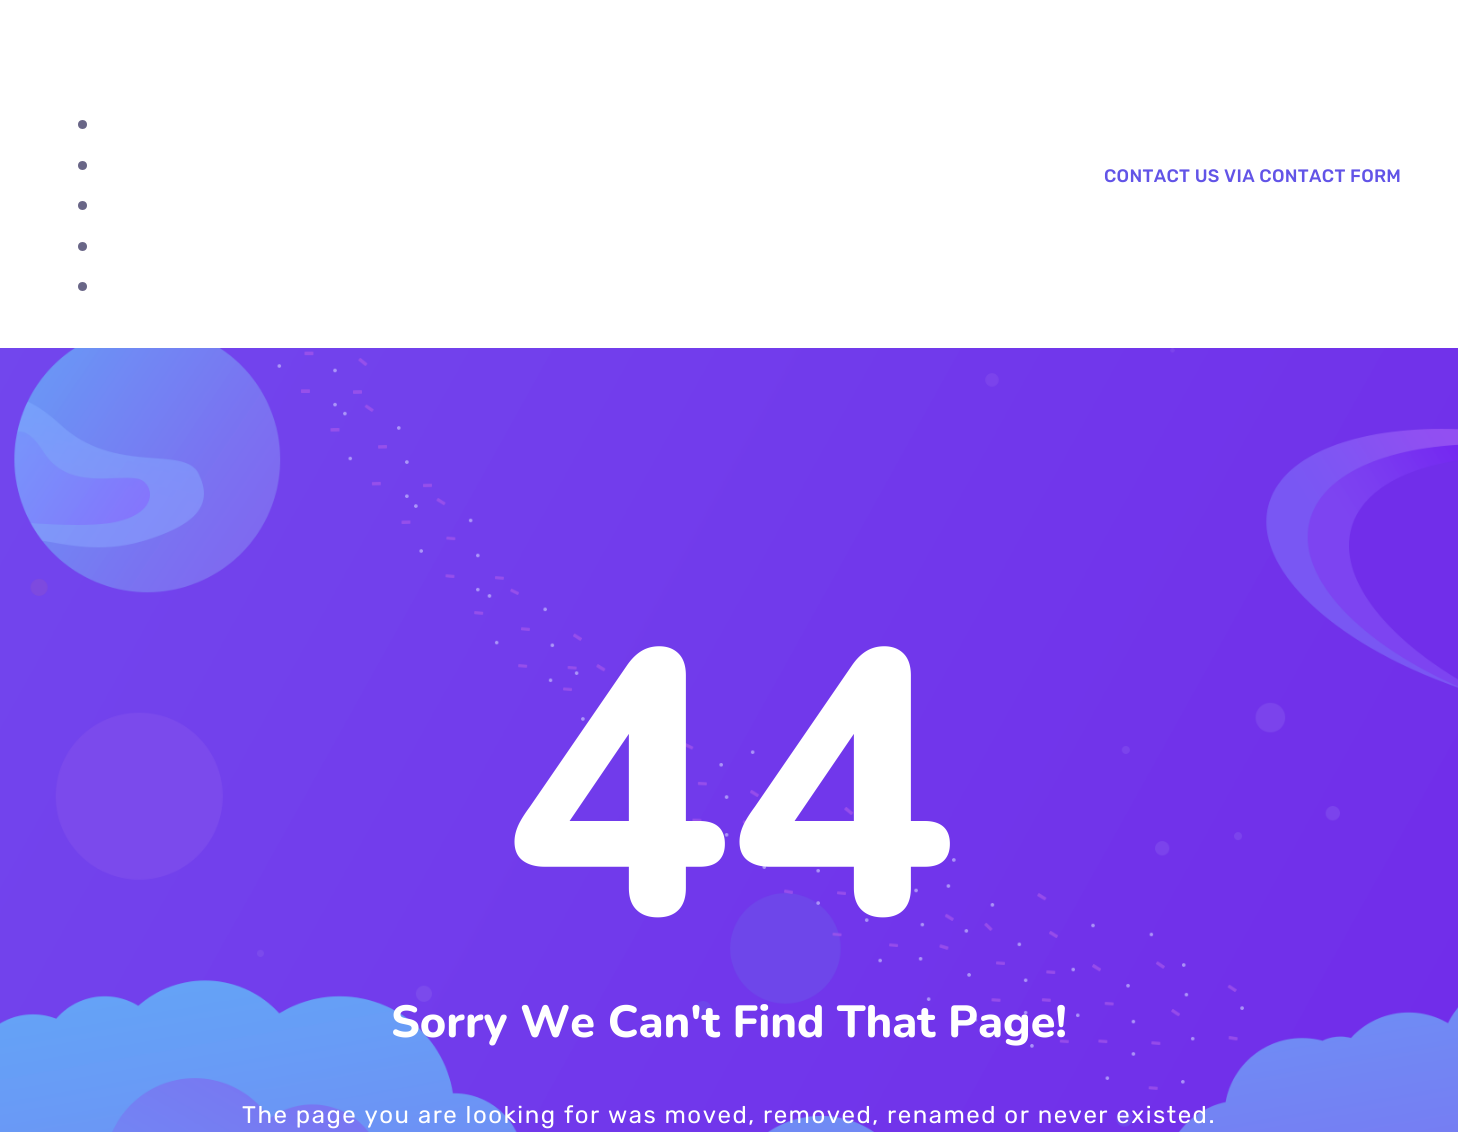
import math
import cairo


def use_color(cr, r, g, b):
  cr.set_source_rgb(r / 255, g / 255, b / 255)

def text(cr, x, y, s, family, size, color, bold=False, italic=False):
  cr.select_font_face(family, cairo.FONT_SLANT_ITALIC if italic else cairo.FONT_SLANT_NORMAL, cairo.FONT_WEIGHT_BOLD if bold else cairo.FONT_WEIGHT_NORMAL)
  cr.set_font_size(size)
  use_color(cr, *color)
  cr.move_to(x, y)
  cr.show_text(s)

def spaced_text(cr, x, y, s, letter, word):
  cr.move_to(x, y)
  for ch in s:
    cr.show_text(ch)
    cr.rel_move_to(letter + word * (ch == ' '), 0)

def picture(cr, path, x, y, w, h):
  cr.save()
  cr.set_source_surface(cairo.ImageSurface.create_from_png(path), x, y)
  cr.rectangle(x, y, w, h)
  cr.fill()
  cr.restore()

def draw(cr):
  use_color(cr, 255, 255, 255)
  cr.paint()
  use_color(cr, 105, 102, 135)
  cr.arc(82.5, 124.5, 4.5, 0, 2 * math.pi)
  cr.fill()
  cr.arc(82.5, 165.5, 4.5, 0, 2 * math.pi)
  cr.fill()
  cr.arc(82.5, 205.5, 4.5, 0, 2 * math.pi)
  cr.fill()
  cr.arc(82.5, 246.5, 4.5, 0, 2 * math.pi)
  cr.fill()
  cr.arc(82.5, 286.5, 4.5, 0, 2 * math.pi)
  cr.fill()
  picture(cr, "img_01.png", 0, 348, 1458, 784)
  cr.select_font_face("Rubik Medium")
  cr.set_font_size(18)
  use_color(cr, 98, 84, 231)
  spaced_text(cr, 1104, 182, "CONTACT US VIA CONTACT FORM", 0.3, 0)
  text(cr, 504, 914, "44", "Nunito ExtraBold", 375, (255, 255, 255))
  text(cr, 391, 1037, "Sorry We Can't Find That Page!", "Nunito ExtraBold", 45, (255, 255, 255))
  cr.select_font_face("Rubik")
  cr.set_font_size(24)
  spaced_text(cr, 242, 1123, "The page you are looking for was moved, removed, renamed or never existed.", 1.5, 0)


surface = cairo.ImageSurface(cairo.FORMAT_RGB24, 1458, 1132)
cr = cairo.Context(surface)
options = cairo.FontOptions()
options.set_hint_metrics(cairo.HINT_METRICS_OFF)
options.set_hint_style(cairo.HINT_STYLE_NONE)
cr.set_font_options(options)
cr.set_miter_limit(4)
draw(cr)
surface.write_to_png("out.png")
